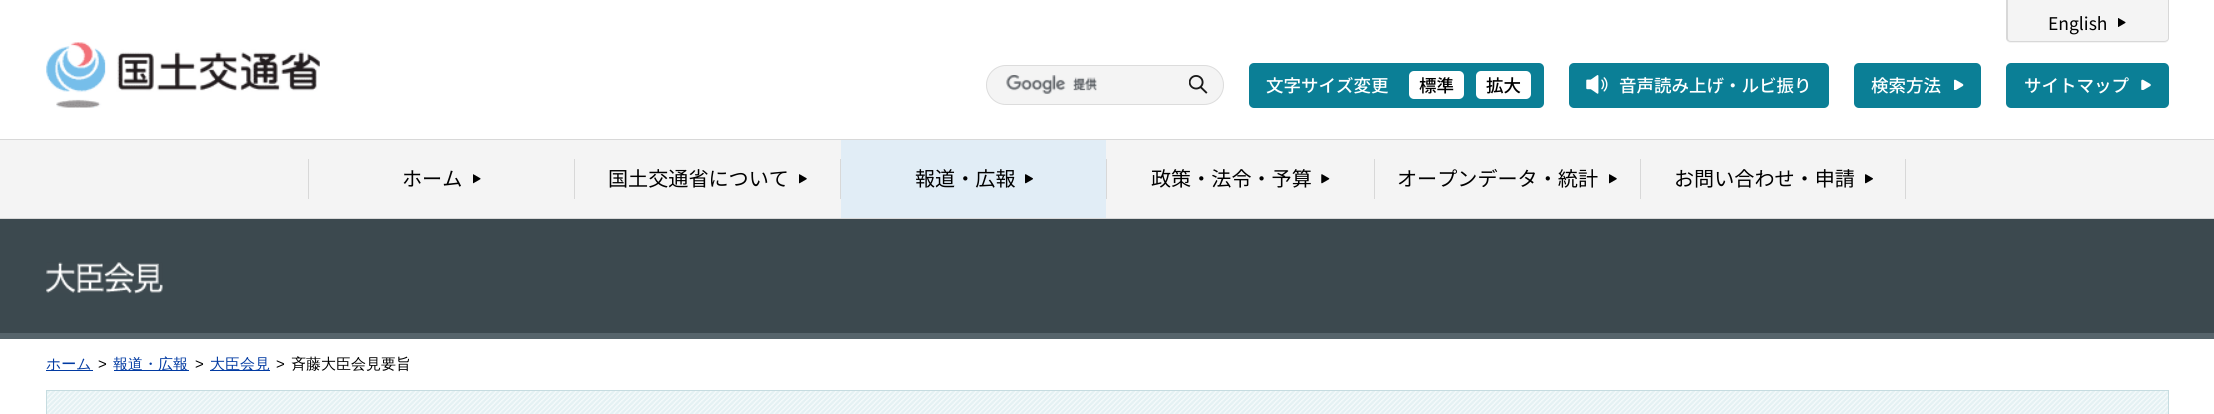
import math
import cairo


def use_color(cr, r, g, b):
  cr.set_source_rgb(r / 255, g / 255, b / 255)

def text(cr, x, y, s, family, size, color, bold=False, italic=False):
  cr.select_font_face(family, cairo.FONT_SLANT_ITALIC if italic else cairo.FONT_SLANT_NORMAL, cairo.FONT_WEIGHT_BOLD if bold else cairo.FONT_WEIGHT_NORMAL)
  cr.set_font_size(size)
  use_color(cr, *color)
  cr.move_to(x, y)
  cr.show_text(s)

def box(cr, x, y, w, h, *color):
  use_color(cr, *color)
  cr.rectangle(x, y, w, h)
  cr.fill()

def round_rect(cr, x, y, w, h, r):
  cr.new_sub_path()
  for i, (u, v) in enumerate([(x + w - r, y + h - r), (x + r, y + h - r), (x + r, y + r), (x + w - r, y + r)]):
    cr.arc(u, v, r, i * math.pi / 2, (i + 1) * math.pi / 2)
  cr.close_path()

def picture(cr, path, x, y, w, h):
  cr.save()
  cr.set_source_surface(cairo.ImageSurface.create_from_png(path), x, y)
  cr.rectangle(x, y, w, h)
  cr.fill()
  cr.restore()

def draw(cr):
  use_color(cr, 255, 255, 255)
  cr.paint()
  picture(cr, "img_01.png", 46, 42, 274, 66)
  use_color(cr, 244, 244, 244)
  cr.new_path()
  cr.move_to(2006, 0)
  cr.line_to(2169, 0)
  cr.line_to(2169, 38)
  cr.curve_to(2169, 41, 2167, 43, 2164, 43)
  cr.line_to(2011, 43)
  cr.curve_to(2008, 43, 2006, 41, 2006, 38)
  cr.close_path()
  cr.fill()
  use_color(cr, 216, 216, 216)
  cr.set_fill_rule(cairo.FILL_RULE_EVEN_ODD)
  cr.new_path()
  cr.move_to(2006, 0)
  cr.line_to(2169, 0)
  cr.line_to(2169, 38)
  cr.curve_to(2169, 40, 2167, 42, 2164, 42)
  cr.line_to(2011, 42)
  cr.curve_to(2008, 42, 2006, 40, 2006, 38)
  cr.close_path()
  cr.move_to(2008, 0)
  cr.line_to(2168, 0)
  cr.line_to(2168, 38)
  cr.curve_to(2168, 40, 2166, 41, 2164, 41)
  cr.line_to(2011, 41)
  cr.curve_to(2009, 41, 2008, 40, 2008, 38)
  cr.close_path()
  cr.fill()
  picture(cr, "img_02.png", 2118, 18, 8, 9)
  use_color(cr, 244, 244, 244)
  round_rect(cr, 986.5, 65.5, 237, 39, 19.5)
  cr.fill_preserve()
  use_color(cr, 220, 220, 220)
  cr.set_line_width(1)
  cr.stroke()
  picture(cr, "img_03.png", 1006, 75, 91, 19)
  picture(cr, "img_04.png", 1189, 75, 19, 19)
  use_color(cr, 11, 127, 150)
  round_rect(cr, 1249, 63, 295, 45, 5)
  cr.fill()
  use_color(cr, 255, 255, 255)
  round_rect(cr, 1409, 71, 55, 28, 5)
  cr.fill()
  round_rect(cr, 1476, 71, 55, 28, 5)
  cr.fill()
  use_color(cr, 11, 127, 150)
  round_rect(cr, 1569, 63, 260, 45, 5)
  cr.fill()
  picture(cr, "img_05.png", 1586, 75, 22, 19)
  round_rect(cr, 1854, 63, 127, 45, 5)
  cr.fill()
  picture(cr, "img_06.png", 1954, 79, 10, 11)
  round_rect(cr, 2006, 63, 163, 45, 5)
  cr.fill()
  picture(cr, "img_07.png", 2141, 79, 10, 11)
  box(cr, 0, 140, 2214, 78, 244, 244, 244)
  box(cr, 0, 139, 2214, 1, 216, 216, 216)
  box(cr, 0, 218, 2214, 1, 216, 216, 216)
  box(cr, 308, 159, 1, 40, 216, 216, 216)
  picture(cr, "img_08.png", 473, 174, 8, 10)
  box(cr, 574, 159, 1, 40, 216, 216, 216)
  picture(cr, "img_09.png", 799, 174, 8, 10)
  box(cr, 841, 140, 265, 78, 225, 237, 246)
  box(cr, 840, 159, 1, 40, 216, 216, 216)
  picture(cr, "img_10.png", 1025, 174, 8, 10)
  box(cr, 1106, 159, 1, 40, 216, 216, 216)
  picture(cr, "img_11.png", 1321, 174, 9, 10)
  box(cr, 1374, 159, 1, 40, 216, 216, 216)
  picture(cr, "img_09.png", 1609, 174, 8, 10)
  box(cr, 1640, 159, 1, 40, 216, 216, 216)
  picture(cr, "img_12.png", 1865, 174, 8, 10)
  box(cr, 1905, 159, 1, 40, 216, 216, 216)
  box(cr, 0, 219, 2214, 114, 60, 73, 79)
  box(cr, 0, 333, 2214, 6, 86, 100, 107)
  picture(cr, "img_13.png", 46, 262, 117, 32)
  box(cr, 46, 370, 47, 1, 1, 58, 162)
  box(cr, 114, 370, 75, 1, 1, 58, 162)
  box(cr, 210, 370, 60, 1, 1, 58, 162)
  picture(cr, "img_14.png", 47, 391, 2121, 23)
  box(cr, 46, 390, 2123, 1, 198, 220, 224)
  box(cr, 2168, 390, 1, 24, 198, 220, 224)
  box(cr, 46, 390, 1, 24, 198, 220, 224)
  text(cr, 2048, 30, "English", "Noto Sans JP", 17.5, (0, 0, 0))
  text(cr, 1266, 92, "文字サイズ変更", "Noto Sans JP Medium", 17.5, (255, 255, 255))
  text(cr, 1419, 92, "標準", "Noto Sans JP Medium", 17.5, (0, 0, 0))
  text(cr, 1486, 92, "拡大", "Noto Sans JP Medium", 17.5, (0, 0, 0))
  text(cr, 1619, 92, "音声読み上げ・ルビ振り", "Noto Sans JP Medium", 17.5, (255, 255, 255))
  text(cr, 1871, 92, "検索方法", "Noto Sans JP Medium", 17.5, (255, 255, 255))
  text(cr, 2024, 92, "サイトマップ", "Noto Sans JP Medium", 17.5, (255, 255, 255))
  text(cr, 402, 186, "ホーム", "Noto Sans JP", 20.1, (0, 0, 0))
  text(cr, 608, 186, "国土交通省について", "Noto Sans JP", 20.1, (0, 0, 0))
  text(cr, 915, 186, "報道・広報", "Noto Sans JP", 20.1, (0, 0, 0))
  text(cr, 1151, 186, "政策・法令・予算", "Noto Sans JP", 20.1, (0, 0, 0))
  text(cr, 1397, 186, "オープンデータ・統計", "Noto Sans JP", 20.1, (0, 0, 0))
  text(cr, 1674, 186, "お問い合わせ・申請", "Noto Sans JP", 20.1, (0, 0, 0))
  text(cr, 46, 369, "ホーム", "WenQuanYi Zen Hei Medium", 15, (1, 58, 162))
  text(cr, 98, 369, ">", "Liberation Sans", 15, (0, 0, 0))
  text(cr, 113, 369, "報道・広報", "WenQuanYi Zen Hei Medium", 15, (1, 58, 162))
  text(cr, 195, 369, ">", "Liberation Sans", 15, (0, 0, 0))
  text(cr, 210, 369, "大臣会見", "WenQuanYi Zen Hei Medium", 15, (1, 58, 162))
  text(cr, 276, 369, ">", "Liberation Sans", 15, (0, 0, 0))
  text(cr, 291, 369, "斉藤大臣会見要旨", "WenQuanYi Zen Hei Medium", 15, (0, 0, 0))


surface = cairo.ImageSurface(cairo.FORMAT_RGB24, 2214, 414)
cr = cairo.Context(surface)
options = cairo.FontOptions()
options.set_hint_metrics(cairo.HINT_METRICS_OFF)
options.set_hint_style(cairo.HINT_STYLE_NONE)
cr.set_font_options(options)
cr.set_miter_limit(4)
draw(cr)
surface.write_to_png("out.png")
